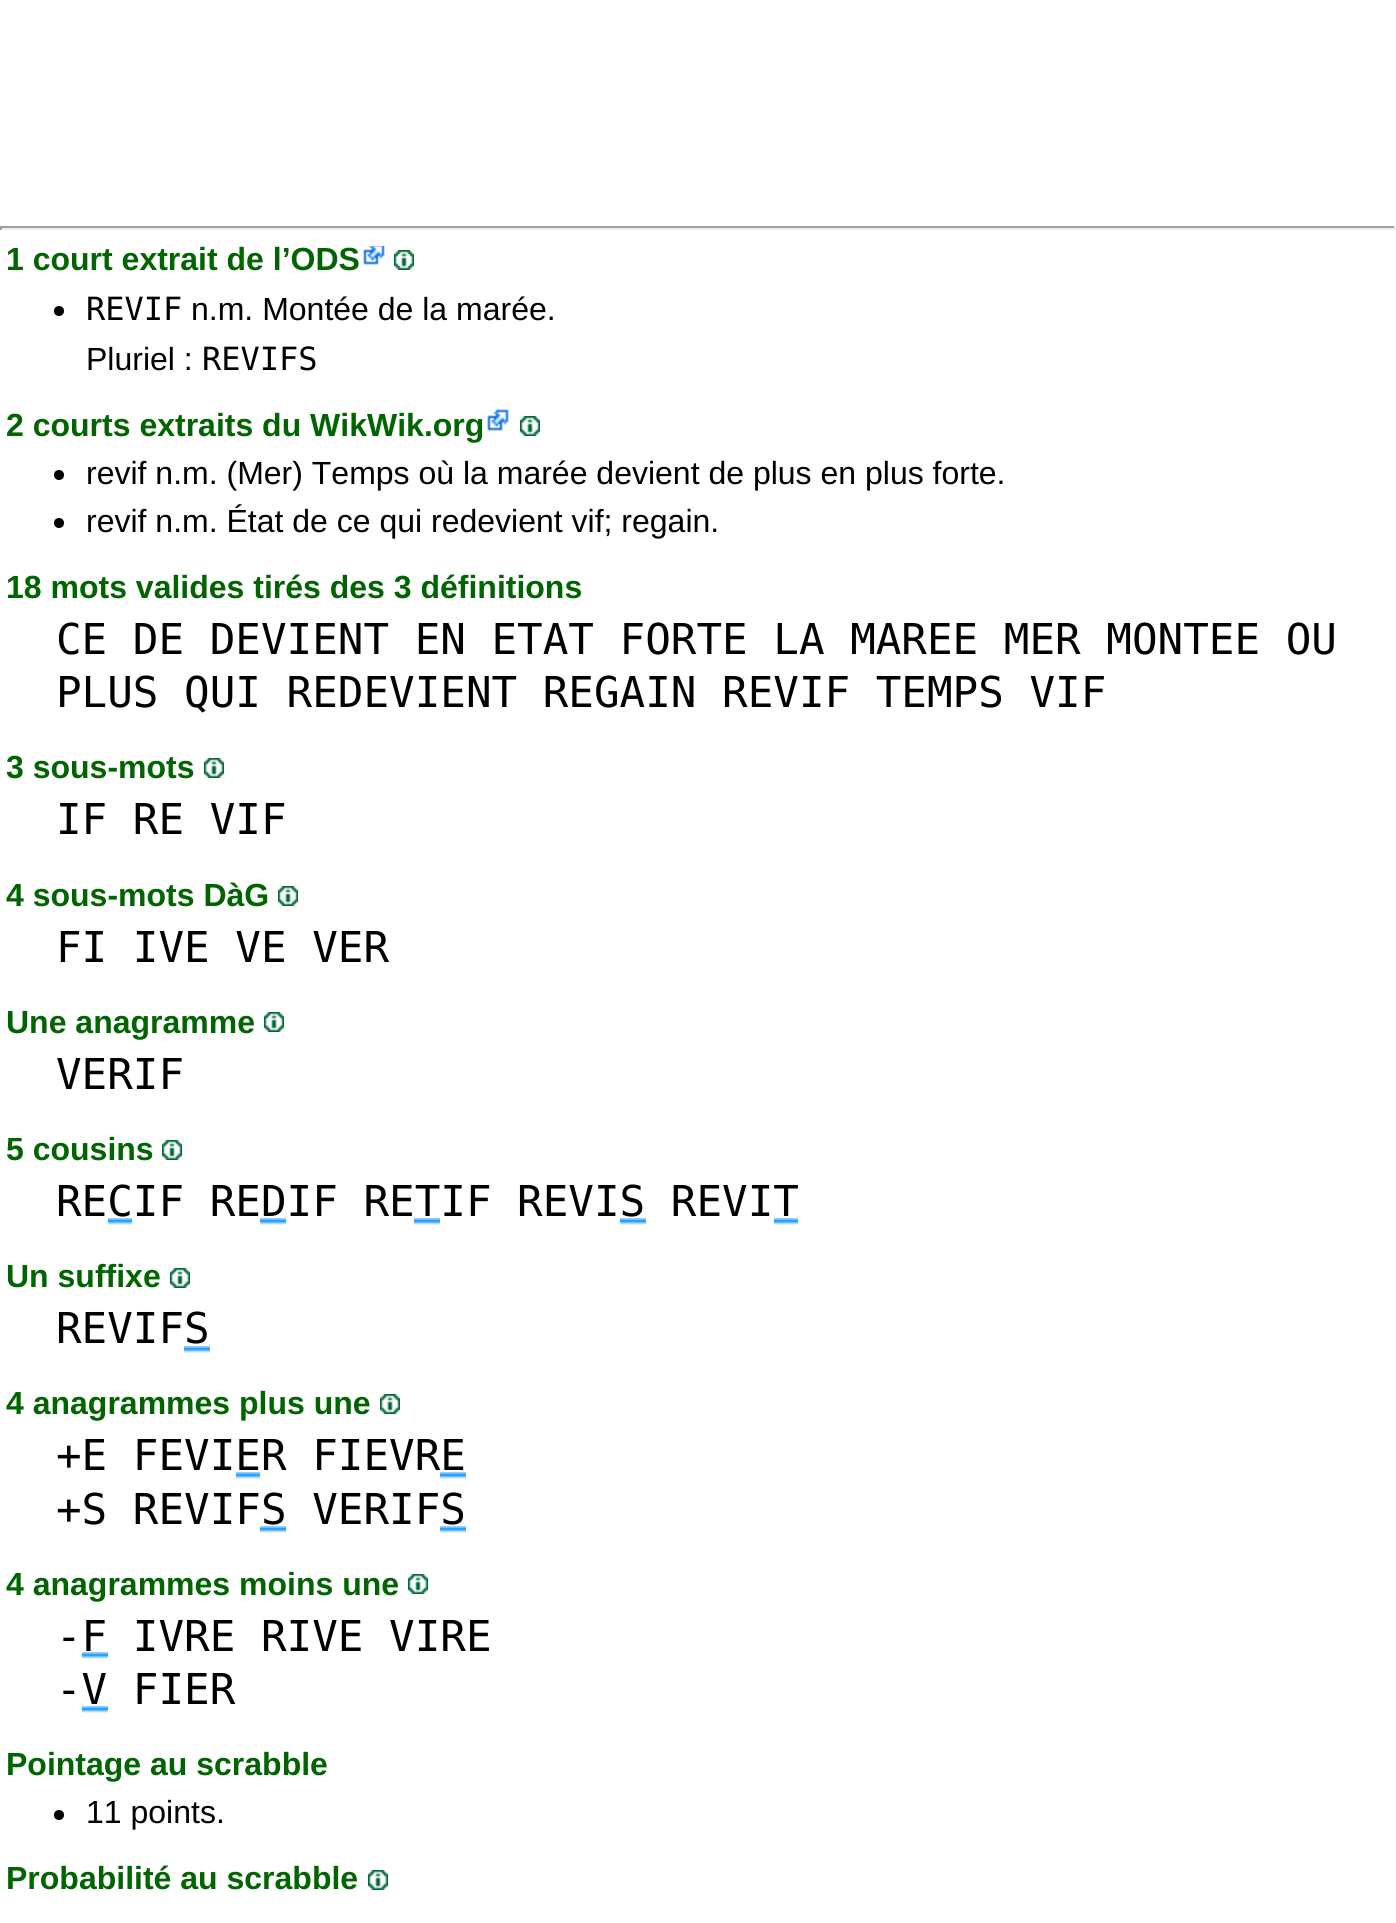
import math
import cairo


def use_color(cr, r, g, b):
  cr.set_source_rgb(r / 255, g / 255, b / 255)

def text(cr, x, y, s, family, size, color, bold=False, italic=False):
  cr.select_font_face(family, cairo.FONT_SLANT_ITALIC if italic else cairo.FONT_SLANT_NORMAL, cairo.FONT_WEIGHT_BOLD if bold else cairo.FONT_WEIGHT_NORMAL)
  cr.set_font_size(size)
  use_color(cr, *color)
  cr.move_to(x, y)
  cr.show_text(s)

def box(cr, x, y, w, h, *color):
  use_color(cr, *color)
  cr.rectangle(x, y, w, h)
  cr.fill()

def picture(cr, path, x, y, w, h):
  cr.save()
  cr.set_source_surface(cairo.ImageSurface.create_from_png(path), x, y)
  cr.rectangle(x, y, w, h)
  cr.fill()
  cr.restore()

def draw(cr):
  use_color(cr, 255, 255, 255)
  cr.paint()
  box(cr, 0, 226, 1396, 2, 159, 159, 159)
  box(cr, 1394, 226, 2, 4, 238, 238, 238)
  box(cr, 0, 228, 1396, 2, 238, 238, 238)
  box(cr, 0, 226, 2, 4, 159, 159, 159)
  picture(cr, "img_01.png", 363, 246, 22, 19)
  picture(cr, "img_02.png", 394, 250, 20, 20)
  use_color(cr, 0, 0, 0)
  cr.arc(59, 311, 5, 0, 2 * math.pi)
  cr.fill()
  picture(cr, "img_03.png", 487, 409, 22, 22)
  picture(cr, "img_02.png", 520, 416, 20, 20)
  cr.arc(59, 475, 5, 0, 2 * math.pi)
  cr.fill()
  cr.arc(59, 523, 5, 0, 2 * math.pi)
  cr.fill()
  picture(cr, "img_02.png", 204, 758, 20, 20)
  picture(cr, "img_02.png", 278, 886, 20, 20)
  picture(cr, "img_02.png", 264, 1012, 20, 20)
  picture(cr, "img_02.png", 162, 1140, 20, 20)
  picture(cr, "img_04.png", 108, 1218, 24, 7)
  picture(cr, "img_05.png", 260, 1218, 26, 7)
  picture(cr, "img_05.png", 414, 1218, 26, 7)
  picture(cr, "img_05.png", 620, 1218, 26, 7)
  picture(cr, "img_04.png", 774, 1218, 24, 7)
  picture(cr, "img_02.png", 170, 1268, 20, 20)
  picture(cr, "img_05.png", 184, 1346, 26, 7)
  picture(cr, "img_02.png", 380, 1394, 20, 20)
  picture(cr, "img_04.png", 236, 1472, 24, 7)
  picture(cr, "img_05.png", 440, 1472, 26, 7)
  picture(cr, "img_05.png", 260, 1526, 26, 7)
  picture(cr, "img_05.png", 440, 1526, 26, 7)
  picture(cr, "img_02.png", 408, 1574, 20, 20)
  picture(cr, "img_05.png", 82, 1652, 26, 7)
  picture(cr, "img_05.png", 82, 1706, 26, 7)
  cr.arc(59, 1815, 5, 0, 2 * math.pi)
  cr.fill()
  picture(cr, "img_02.png", 368, 1870, 20, 20)
  text(cr, 6, 270, "1 court extrait de l’ODS", "Liberation Sans", 32, (0, 100, 0), bold=True)
  text(cr, 86, 320, "REVIF", "DejaVu Sans Mono", 32, (0, 0, 0))
  text(cr, 191, 320, "n.m. Montée de la marée.", "Liberation Sans", 32, (0, 0, 0))
  text(cr, 86, 370, "Pluriel :", "Liberation Sans", 32, (0, 0, 0))
  text(cr, 202, 370, "REVIFS", "DejaVu Sans Mono", 32, (0, 0, 0))
  text(cr, 6, 436, "2 courts extraits du WikWik.org", "Liberation Sans", 32, (0, 100, 0), bold=True)
  text(cr, 86, 484, "revif n.m. (Mer) Temps où la marée devient de plus en plus forte.", "Liberation Sans", 32, (0, 0, 0))
  text(cr, 86, 532, "revif n.m. État de ce qui redevient vif; regain.", "Liberation Sans", 32, (0, 0, 0))
  text(cr, 6, 598, "18 mots valides tirés des 3 définitions", "Liberation Sans", 32, (0, 100, 0), bold=True)
  text(cr, 56, 654, "CE DE DEVIENT EN ETAT FORTE LA MAREE MER MONTEE OU", "DejaVu Sans Mono", 42.55, (0, 0, 0))
  text(cr, 56, 707, "PLUS QUI REDEVIENT REGAIN REVIF TEMPS VIF", "DejaVu Sans Mono", 42.55, (0, 0, 0))
  text(cr, 6, 778, "3 sous-mots", "Liberation Sans", 32, (0, 100, 0), bold=True)
  text(cr, 56, 834, "IF RE VIF", "DejaVu Sans Mono", 42.55, (0, 0, 0))
  text(cr, 6, 906, "4 sous-mots DàG", "Liberation Sans", 32, (0, 100, 0), bold=True)
  text(cr, 56, 962, "FI IVE VE VER", "DejaVu Sans Mono", 42.55, (0, 0, 0))
  text(cr, 6, 1033, "Une anagramme", "Liberation Sans", 32, (0, 100, 0), bold=True)
  text(cr, 56, 1089, "VERIF", "DejaVu Sans Mono", 42.55, (0, 0, 0))
  text(cr, 6, 1160, "5 cousins", "Liberation Sans", 32, (0, 100, 0), bold=True)
  text(cr, 56, 1216, "RECIF REDIF RETIF REVIS REVIT", "DejaVu Sans Mono", 42.55, (0, 0, 0))
  text(cr, 6, 1287, "Un suffixe", "Liberation Sans", 32, (0, 100, 0), bold=True)
  text(cr, 56, 1343, "REVIFS", "DejaVu Sans Mono", 42.55, (0, 0, 0))
  text(cr, 6, 1414, "4 anagrammes plus une", "Liberation Sans", 32, (0, 100, 0), bold=True)
  text(cr, 56, 1470, "+E FEVIER FIEVRE", "DejaVu Sans Mono", 42.55, (0, 0, 0))
  text(cr, 56, 1524, "+S REVIFS VERIFS", "DejaVu Sans Mono", 42.55, (0, 0, 0))
  text(cr, 6, 1595, "4 anagrammes moins une", "Liberation Sans", 32, (0, 100, 0), bold=True)
  text(cr, 56, 1651, "-F IVRE RIVE VIRE", "DejaVu Sans Mono", 42.55, (0, 0, 0))
  text(cr, 56, 1704, "-V FIER", "DejaVu Sans Mono", 42.55, (0, 0, 0))
  text(cr, 6, 1775, "Pointage au scrabble", "Liberation Sans", 32, (0, 100, 0), bold=True)
  text(cr, 86, 1823, "11 points.", "Liberation Sans", 32, (0, 0, 0))
  text(cr, 6, 1889, "Probabilité au scrabble", "Liberation Sans", 32, (0, 100, 0), bold=True)


surface = cairo.ImageSurface(cairo.FORMAT_RGB24, 1396, 1923)
cr = cairo.Context(surface)
options = cairo.FontOptions()
options.set_hint_metrics(cairo.HINT_METRICS_OFF)
options.set_hint_style(cairo.HINT_STYLE_NONE)
cr.set_font_options(options)
cr.set_miter_limit(4)
draw(cr)
surface.write_to_png("out.png")
